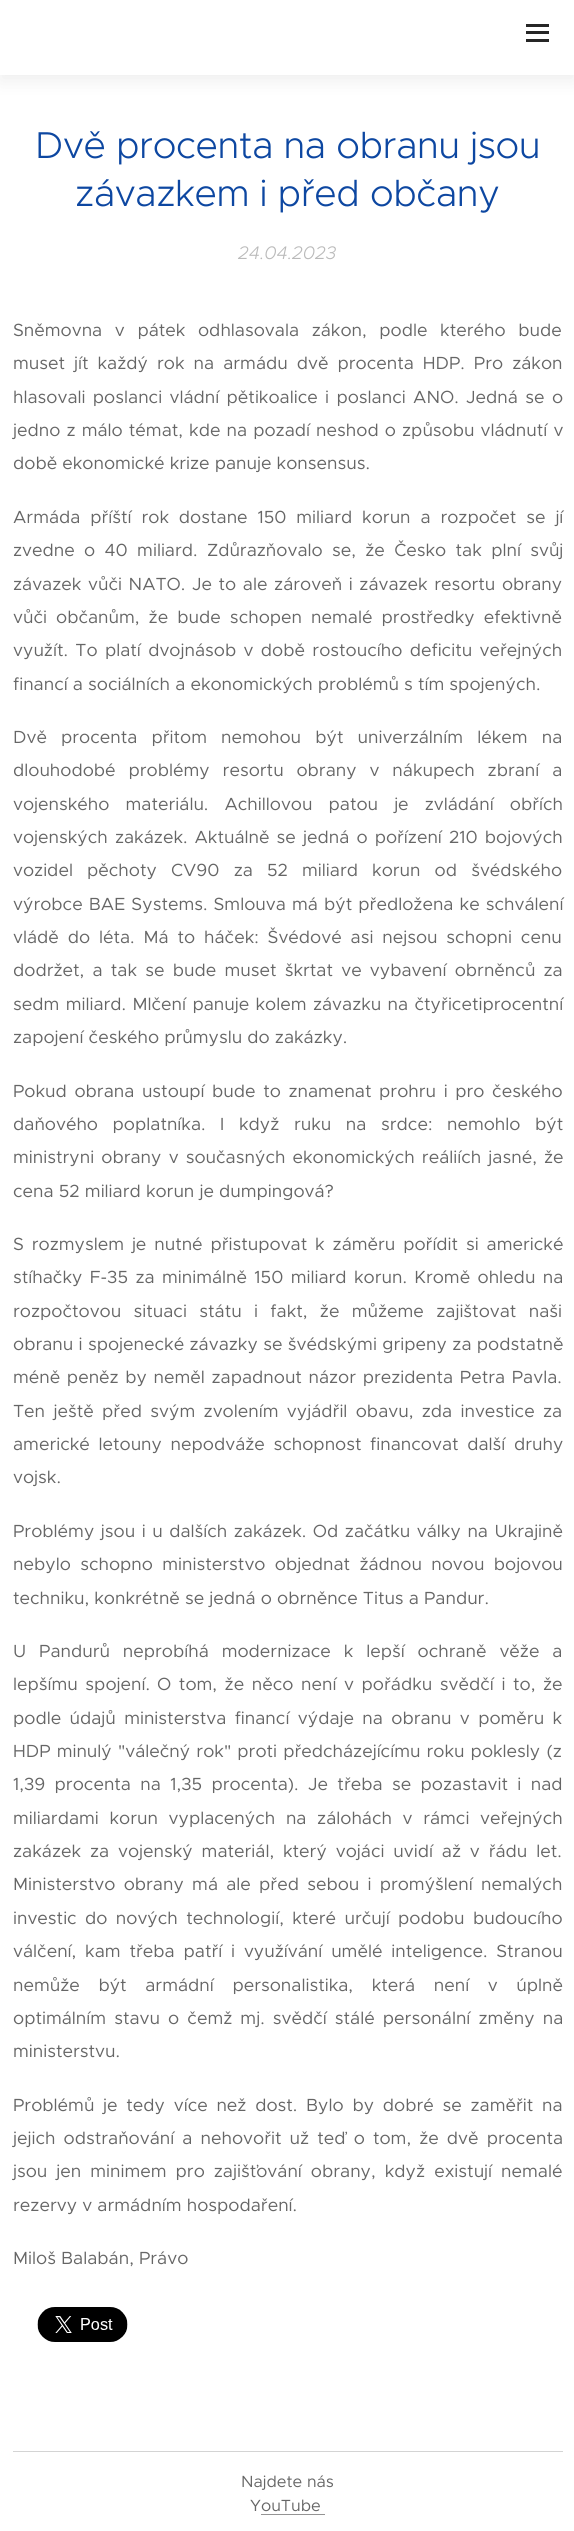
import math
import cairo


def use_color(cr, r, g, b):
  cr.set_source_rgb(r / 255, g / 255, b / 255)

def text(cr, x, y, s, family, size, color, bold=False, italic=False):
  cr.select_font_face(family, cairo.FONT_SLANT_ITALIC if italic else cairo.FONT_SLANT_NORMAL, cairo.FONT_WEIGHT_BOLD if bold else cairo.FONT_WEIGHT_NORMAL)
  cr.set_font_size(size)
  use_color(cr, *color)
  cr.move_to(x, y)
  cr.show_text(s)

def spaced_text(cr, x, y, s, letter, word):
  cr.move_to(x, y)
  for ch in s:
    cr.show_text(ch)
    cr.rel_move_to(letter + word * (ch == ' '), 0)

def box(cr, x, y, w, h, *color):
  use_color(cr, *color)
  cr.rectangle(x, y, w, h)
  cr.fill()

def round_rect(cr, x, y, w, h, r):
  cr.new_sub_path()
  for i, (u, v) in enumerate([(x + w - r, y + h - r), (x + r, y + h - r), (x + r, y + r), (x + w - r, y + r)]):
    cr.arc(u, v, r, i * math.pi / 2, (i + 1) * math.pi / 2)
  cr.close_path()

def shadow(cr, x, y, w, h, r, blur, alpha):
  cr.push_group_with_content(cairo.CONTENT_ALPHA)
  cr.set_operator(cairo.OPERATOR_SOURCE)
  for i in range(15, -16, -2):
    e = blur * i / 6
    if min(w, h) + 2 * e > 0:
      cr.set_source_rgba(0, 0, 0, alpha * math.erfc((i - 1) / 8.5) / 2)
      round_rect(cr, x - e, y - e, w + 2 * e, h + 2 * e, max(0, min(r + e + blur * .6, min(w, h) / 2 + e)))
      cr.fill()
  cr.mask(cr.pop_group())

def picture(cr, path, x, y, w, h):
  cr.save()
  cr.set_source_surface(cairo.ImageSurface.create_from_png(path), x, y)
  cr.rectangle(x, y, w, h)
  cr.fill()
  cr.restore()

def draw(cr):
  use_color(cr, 255, 255, 255)
  cr.paint()
  use_color(cr, 0, 0, 0)
  shadow(cr, 0, 6, 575, 75, 0, 9.5, 0.07)
  box(cr, 0, 0, 574, 75, 255, 255, 255)
  box(cr, 526, 31, 23, 3, 38, 38, 38)
  box(cr, 526, 24, 23, 3, 38, 38, 38)
  box(cr, 526, 39, 23, 3, 38, 38, 38)
  picture(cr, "img_01.png", 37, 2307, 91, 35)
  box(cr, 13, 2451, 550, 1, 212, 212, 212)
  box(cr, 261, 2514, 64, 1, 148, 148, 148)
  cr.select_font_face("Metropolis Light")
  cr.set_font_size(37.5)
  use_color(cr, 13, 71, 161)
  spaced_text(cr, 35, 158, "Dvě procenta na obranu jsou", -0.4, 0)
  spaced_text(cr, 75, 206, "závazkem i před občany", -0.4, 0)
  text(cr, 238, 259, "24.04.2023", "Metropolis Light", 18.25, (186, 186, 186), italic=True)
  cr.select_font_face("Metropolis")
  cr.set_font_size(17.65)
  use_color(cr, 102, 102, 102)
  spaced_text(cr, 13, 336, "Sněmovna v pátek odhlasovala zákon, podle kterého bude", 0, 7.5)
  spaced_text(cr, 13, 369, "muset jít každý rok na armádu dvě procenta HDP. Pro zákon", 0, 3.9)
  spaced_text(cr, 13, 403, "hlasovali poslanci vládní pětikoalice i poslanci ANO. Jedná se o", 0, 2.25)
  spaced_text(cr, 13, 436, "jedno z málo témat, kde na pozadí neshod o způsobu vládnutí v", 0, 1)
  text(cr, 13, 469, "době ekonomické krize panuje konsensus.", "Metropolis", 17.65, (102, 102, 102))
  spaced_text(cr, 13, 523, "Armáda příští rok dostane 150 miliard korun a rozpočet se jí", 0, 4.75)
  spaced_text(cr, 13, 556, "zvedne o 40 miliard. Zdůrazňovalo se, že Česko tak plní svůj", 0, 4.25)
  spaced_text(cr, 13, 590, "závazek vůči NATO. Je to ale zároveň i závazek resortu obrany", 0, 1.5)
  spaced_text(cr, 13, 623, "vůči občanům, že bude schopen nemalé prostředky efektivně", 0, 4)
  spaced_text(cr, 13, 656, "využít. To platí dvojnásob v době rostoucího deficitu veřejných", 0, 2.25)
  text(cr, 13, 690, "financí a sociálních a ekonomických problémů s tím spojených.", "Metropolis", 17.65, (102, 102, 102))
  spaced_text(cr, 13, 743, "Dvě procenta přitom nemohou být univerzálním lékem na", 0, 9)
  spaced_text(cr, 13, 776, "dlouhodobé problémy resortu obrany v nákupech zbraní a", 0, 7.75)
  spaced_text(cr, 13, 810, "vojenského materiálu. Achillovou patou je zvládání obřích", 0, 11)
  spaced_text(cr, 13, 843, "vojenských zakázek. Aktuálně se jedná o pořízení 210 bojových", 0, 2)
  spaced_text(cr, 13, 876, "vozidel pěchoty CV90 za 52 miliard korun od švédského", 0, 9)
  spaced_text(cr, 13, 910, "výrobce BAE Systems. Smlouva má být předložena ke schválení", 0, 1)
  spaced_text(cr, 13, 943, "vládě do léta. Má to háček: Švédové asi nejsou schopni cenu", 0, 3.75)
  spaced_text(cr, 13, 976, "dodržet, a tak se bude muset škrtat ve vybavení obrněnců za", 0, 3.1)
  spaced_text(cr, 13, 1010, "sedm miliard. Mlčení panuje kolem závazku na čtyřicetiprocentní", 0, 1.25)
  text(cr, 13, 1043, "zapojení českého průmyslu do zakázky.", "Metropolis", 17.65, (102, 102, 102))
  spaced_text(cr, 13, 1097, "Pokud obrana ustoupí bude to znamenat prohru i pro českého", 0, 2.5)
  spaced_text(cr, 13, 1130, "daňového poplatníka. I když ruku na srdce: nemohlo být", 0, 9.5)
  spaced_text(cr, 13, 1163, "ministryni obrany v současných ekonomických reáliích jasné, že", 0, 2)
  text(cr, 13, 1197, "cena 52 miliard korun je dumpingová?", "Metropolis", 17.65, (102, 102, 102))
  spaced_text(cr, 13, 1250, "S rozmyslem je nutné přistupovat k záměru pořídit si americké", 0, 2.75)
  spaced_text(cr, 13, 1283, "stíhačky F-35 za minimálně 150 miliard korun. Kromě ohledu na", 0, 2.25)
  spaced_text(cr, 13, 1317, "rozpočtovou situaci státu i fakt, že můžeme zajištovat naši", 0, 7.25)
  spaced_text(cr, 13, 1350, "obranu i spojenecké závazky se švédskými gripeny za podstatně", 0, 0.25)
  spaced_text(cr, 13, 1383, "méně peněz by neměl zapadnout názor prezidenta Petra Pavla.", 0, 1.5)
  spaced_text(cr, 13, 1417, "Ten ještě před svým zvolením vyjádřil obavu, zda investice za", 0, 3.25)
  spaced_text(cr, 13, 1450, "americké letouny nepodváže schopnost financovat další druhy", 0, 3.5)
  text(cr, 13, 1483, "vojsk.", "Metropolis", 17.65, (102, 102, 102))
  spaced_text(cr, 13, 1537, "Problémy jsou i u dalších zakázek. Od začátku války na Ukrajině", 0, 1.4)
  spaced_text(cr, 13, 1570, "nebylo schopno ministerstvo objednat žádnou novou bojovou", 0, 4.25)
  text(cr, 13, 1604, "techniku, konkrétně se jedná o obrněnce Titus a Pandur.", "Metropolis", 17.65, (102, 102, 102))
  spaced_text(cr, 13, 1657, "U Pandurů neprobíhá modernizace k lepší ochraně věže a", 0, 7.75)
  spaced_text(cr, 13, 1690, "lepšímu spojení.", 0, 2.5)
  spaced_text(cr, 157, 1690, "O tom, že něco není v pořádku svědčí i to, že", 0, 2.5)
  spaced_text(cr, 13, 1724, "podle údajů ministerstva financí výdaje na obranu v poměru k", 0, 3.25)
  spaced_text(cr, 13, 1757, "HDP minulý \"válečný rok\" proti předcházejícímu roku poklesly (z", 0, 1)
  spaced_text(cr, 13, 1790, "1,39 procenta na 1,35 procenta). Je třeba se pozastavit i nad", 0, 4.25)
  spaced_text(cr, 13, 1824, "miliardami korun vyplacených na zálohách v rámci veřejných", 0, 5.5)
  spaced_text(cr, 13, 1857, "zakázek za vojenský materiál, který vojáci uvidí až v řádu let.", 0, 3.75)
  spaced_text(cr, 13, 1890, "Ministerstvo obrany má ale před sebou i promýšlení nemalých", 0, 3.1)
  spaced_text(cr, 13, 1924, "investic do nových technologií, které určují podobu budoucího", 0, 3.25)
  spaced_text(cr, 13, 1957, "válčení, kam třeba patří i využívání umělé inteligence. Stranou", 0, 3.75)
  spaced_text(cr, 13, 1991, "nemůže být armádní personalistika, která není v úplně", 0, 13.5)
  spaced_text(cr, 13, 2024, "optimálním stavu o čemž mj. svědčí stálé personální změny na", 0, 3)
  text(cr, 13, 2057, "ministerstvu.", "Metropolis", 17.65, (102, 102, 102))
  spaced_text(cr, 13, 2111, "Problémů je tedy více než dost. Bylo by dobré se zaměřit na", 0, 3.6)
  spaced_text(cr, 13, 2144, "jejich odstraňování a nehovořit už teď o tom, že dvě procenta", 0, 3)
  spaced_text(cr, 13, 2177, "jsou jen minimem pro zajišťování obrany, když existují nemalé", 0, 3.9)
  text(cr, 13, 2211, "rezervy v armádním hospodaření.", "Metropolis", 17.65, (102, 102, 102))
  text(cr, 13, 2264, "Miloš Balabán, Právo", "Metropolis", 17.65, (102, 102, 102))
  text(cr, 241, 2487, "Najdete nás", "Metropolis", 16.25, (102, 102, 102))
  text(cr, 250, 2511, "YouTube", "Metropolis", 16.25, (102, 102, 102))


surface = cairo.ImageSurface(cairo.FORMAT_RGB24, 574, 2531)
cr = cairo.Context(surface)
options = cairo.FontOptions()
options.set_hint_metrics(cairo.HINT_METRICS_OFF)
options.set_hint_style(cairo.HINT_STYLE_NONE)
cr.set_font_options(options)
cr.set_miter_limit(4)
draw(cr)
surface.write_to_png("out.png")
